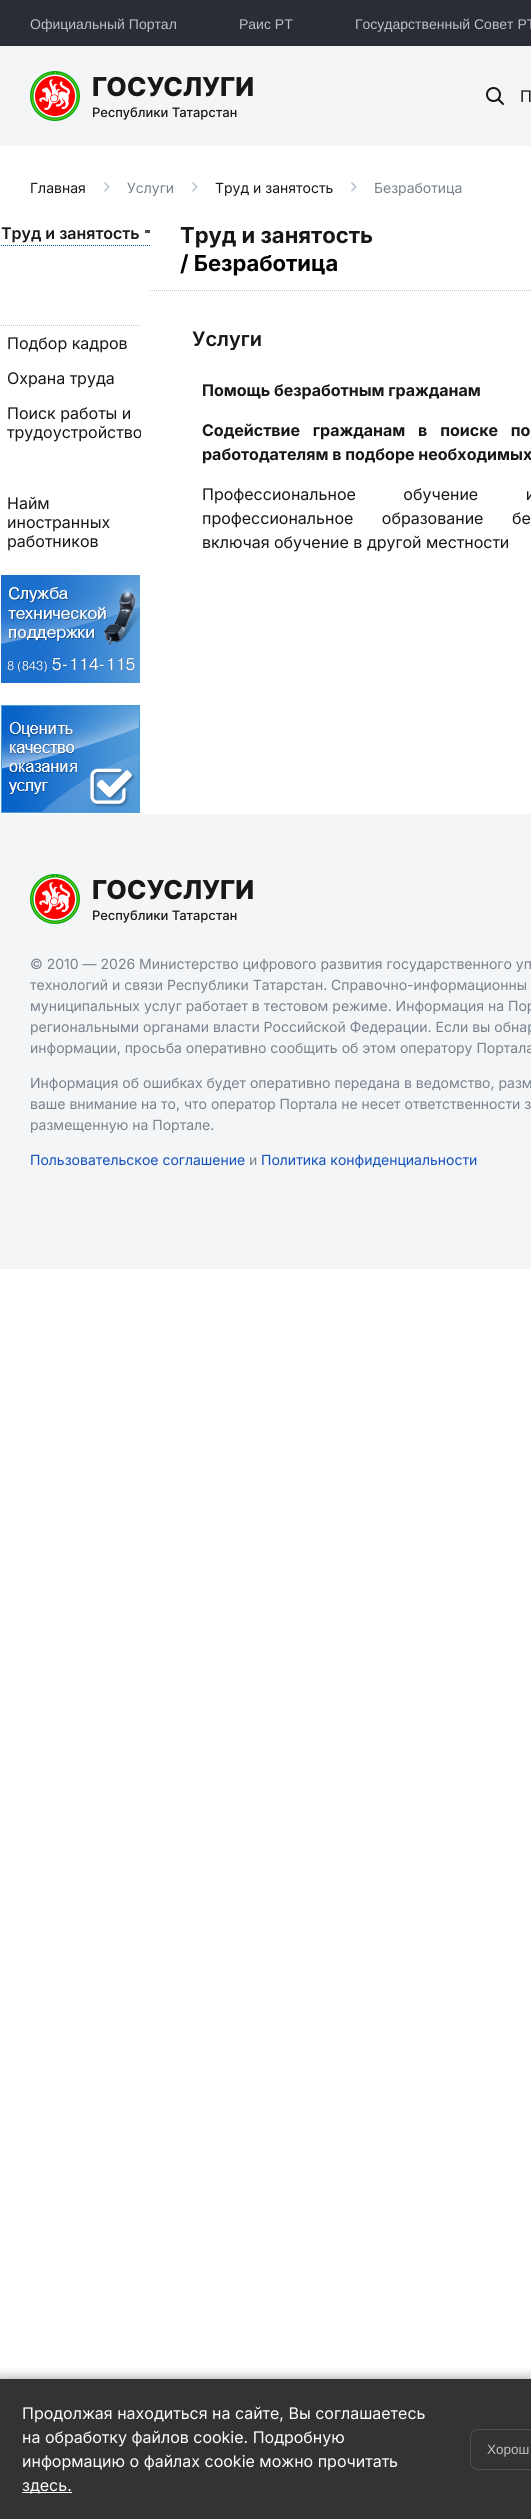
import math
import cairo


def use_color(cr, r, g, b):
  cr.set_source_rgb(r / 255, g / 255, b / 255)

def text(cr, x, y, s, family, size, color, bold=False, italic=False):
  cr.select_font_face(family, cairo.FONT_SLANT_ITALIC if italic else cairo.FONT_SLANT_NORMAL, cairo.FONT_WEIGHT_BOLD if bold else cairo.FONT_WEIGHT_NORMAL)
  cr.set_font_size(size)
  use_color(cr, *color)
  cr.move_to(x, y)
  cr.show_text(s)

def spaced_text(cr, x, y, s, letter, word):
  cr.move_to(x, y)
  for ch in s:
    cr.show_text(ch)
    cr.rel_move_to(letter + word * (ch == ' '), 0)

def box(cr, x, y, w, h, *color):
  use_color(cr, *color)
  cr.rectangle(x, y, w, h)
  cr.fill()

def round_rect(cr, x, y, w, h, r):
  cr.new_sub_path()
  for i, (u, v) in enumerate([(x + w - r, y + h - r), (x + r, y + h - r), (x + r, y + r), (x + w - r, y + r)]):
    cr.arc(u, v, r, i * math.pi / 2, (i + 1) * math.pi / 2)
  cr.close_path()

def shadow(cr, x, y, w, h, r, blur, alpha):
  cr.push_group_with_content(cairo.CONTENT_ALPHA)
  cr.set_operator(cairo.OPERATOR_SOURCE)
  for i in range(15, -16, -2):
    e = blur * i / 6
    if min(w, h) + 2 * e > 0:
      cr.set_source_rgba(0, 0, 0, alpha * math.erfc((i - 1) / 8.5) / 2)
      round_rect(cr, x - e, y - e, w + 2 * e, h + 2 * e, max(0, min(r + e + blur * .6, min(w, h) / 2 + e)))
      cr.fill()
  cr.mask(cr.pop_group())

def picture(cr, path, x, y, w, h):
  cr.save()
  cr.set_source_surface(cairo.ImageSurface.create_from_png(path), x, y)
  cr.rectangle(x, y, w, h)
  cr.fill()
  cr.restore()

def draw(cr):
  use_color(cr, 255, 255, 255)
  cr.paint()
  box(cr, 0, 0, 531, 46, 43, 45, 54)
  box(cr, 0, 46, 531, 100, 243, 245, 247)
  picture(cr, "img_01.png", 30, 71, 223, 50)
  picture(cr, "img_02.png", 486, 87, 18, 18)
  picture(cr, "img_03.png", 104, 182, 6, 10)
  picture(cr, "img_03.png", 192, 182, 6, 10)
  picture(cr, "img_03.png", 351, 182, 6, 10)
  box(cr, 145, 230, 5, 3, 76, 76, 76)
  cr.new_path()
  cr.move_to(1, 245.5)
  cr.line_to(150, 245.5)
  use_color(cr, 0, 85, 148)
  cr.set_line_width(1)
  cr.set_dash([1, 1])
  cr.stroke()
  cr.new_path()
  cr.move_to(150, 290.5)
  cr.line_to(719, 290.5)
  use_color(cr, 200, 200, 200)
  cr.stroke()
  cr.new_path()
  cr.move_to(1, 325.5)
  cr.line_to(141, 325.5)
  cr.stroke()
  picture(cr, "img_04.png", 1, 575, 139, 108)
  picture(cr, "img_05.png", 1, 705, 139, 108)
  box(cr, 0, 814, 531, 455, 243, 245, 247)
  picture(cr, "img_01.png", 30, 874, 223, 50)
  use_color(cr, 0, 0, 0)
  shadow(cr, 0, 2377, 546, 140, 0, 5, 0.3)
  box(cr, 0, 2379, 531, 140, 51, 51, 51)
  box(cr, 22, 2492, 50, 1, 255, 255, 255)
  round_rect(cr, 470.5, 2429.5, 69, 40, 7.5)
  use_color(cr, 80, 80, 80)
  cr.set_dash([])
  cr.stroke()
  text(cr, 30, 29, "Официальный Портал", "Liberation Sans", 14, (191, 192, 195))
  text(cr, 239, 29, "Раис РТ", "Liberation Sans", 14, (191, 192, 195))
  text(cr, 355, 29, "Государственный Совет РТ", "Liberation Sans", 14, (191, 192, 195))
  text(cr, 520, 102, "П", "Inter", 16, (23, 23, 23))
  text(cr, 30, 193, "Главная", "Inter", 14, (23, 23, 23))
  text(cr, 127, 193, "Услуги", "Inter", 14, (120, 130, 140))
  text(cr, 215, 193, "Труд и занятость", "Inter", 14, (23, 23, 23))
  text(cr, 374, 193, "Безработица", "Inter", 14, (120, 130, 140))
  text(cr, 1, 239, "Труд и занятость", "Inter SemiBold", 16, (23, 23, 23))
  text(cr, 180, 243, "Труд и занятость", "Inter", 22, (23, 23, 23), bold=True)
  text(cr, 180, 271, "/ Безработица", "Inter", 22, (0, 0, 0), bold=True)
  text(cr, 7, 349, "Подбор кадров", "Inter", 16, (23, 23, 23))
  text(cr, 7, 384, "Охрана труда", "Inter", 16, (23, 23, 23))
  text(cr, 7, 419, "Поиск работы и", "Inter", 16, (23, 23, 23))
  cr.save()
  cr.rectangle(1, 326, 140, 233)
  cr.clip()
  text(cr, 7, 438, "трудоустройство", "Inter", 16, (23, 23, 23))
  cr.restore()
  text(cr, 7, 509, "Найм", "Inter", 16, (23, 23, 23))
  text(cr, 7, 528, "иностранных", "Inter", 16, (23, 23, 23))
  text(cr, 7, 547, "работников", "Inter", 16, (23, 23, 23))
  text(cr, 192, 346, "Услуги", "Inter SemiBold", 20, (23, 23, 23))
  text(cr, 202, 396, "Помощь безработным гражданам", "Inter", 16, (23, 23, 23), bold=True)
  spaced_text(cr, 202, 436, "Содействие гражданам в поиске по", 0, 9)
  text(cr, 202, 460, "работодателям в подборе необходимых", "Inter", 16, (23, 23, 23), bold=True)
  cr.select_font_face("Inter")
  spaced_text(cr, 202, 500, "Профессиональное обучение и", 0, 43)
  spaced_text(cr, 202, 524, "профессиональное образование бе", 0, 24)
  text(cr, 202, 548, "включая обучение в другой местности", "Inter", 16, (23, 23, 23))
  text(cr, 30, 969, "© 2010 — 2026 Министерство цифрового развития государственного уп", "Inter", 14, (120, 130, 140))
  text(cr, 30, 990, "технологий и связи Республики Татарстан. Справочно-информационны", "Inter", 14, (120, 130, 140))
  text(cr, 30, 1011, "муниципальных услуг работает в тестовом режиме. Информация на Пор", "Inter", 14, (120, 130, 140))
  text(cr, 30, 1032, "региональными органами власти Российской Федерации. Если вы обнар", "Inter", 14, (120, 130, 140))
  text(cr, 30, 1053, "информации, просьба оперативно сообщить об этом оператору Портала", "Inter", 14, (120, 130, 140))
  text(cr, 30, 1088, "Информация об ошибках будет оперативно передана в ведомство, разм", "Inter", 14, (120, 130, 140))
  text(cr, 30, 1109, "ваше внимание на то, что оператор Портала не несет ответственности з", "Inter", 14, (120, 130, 140))
  text(cr, 30, 1130, "размещенную на Портале.", "Inter", 14, (120, 130, 140))
  text(cr, 30, 1165, "Пользовательское соглашение", "Inter", 14, (20, 80, 190))
  text(cr, 249, 1165, "и", "Inter", 14, (120, 130, 140))
  text(cr, 261, 1165, "Политика конфиденциальности", "Inter", 14, (20, 80, 190))
  text(cr, 22, 2419, "Продолжая находиться на сайте, Вы соглашаетесь", "Inter", 16, (255, 255, 255))
  text(cr, 22, 2443, "на обработку файлов cookie. Подробную", "Inter", 16, (255, 255, 255))
  text(cr, 22, 2467, "информацию о файлах cookie можно прочитать", "Inter", 16, (255, 255, 255))
  text(cr, 22, 2491, "здесь.", "Inter", 16, (255, 255, 255))
  text(cr, 487, 2454, "Хорош", "Liberation Sans", 13.5, (191, 192, 195))


surface = cairo.ImageSurface(cairo.FORMAT_RGB24, 531, 2519)
cr = cairo.Context(surface)
options = cairo.FontOptions()
options.set_hint_metrics(cairo.HINT_METRICS_OFF)
options.set_hint_style(cairo.HINT_STYLE_NONE)
cr.set_font_options(options)
cr.set_miter_limit(4)
draw(cr)
surface.write_to_png("out.png")
